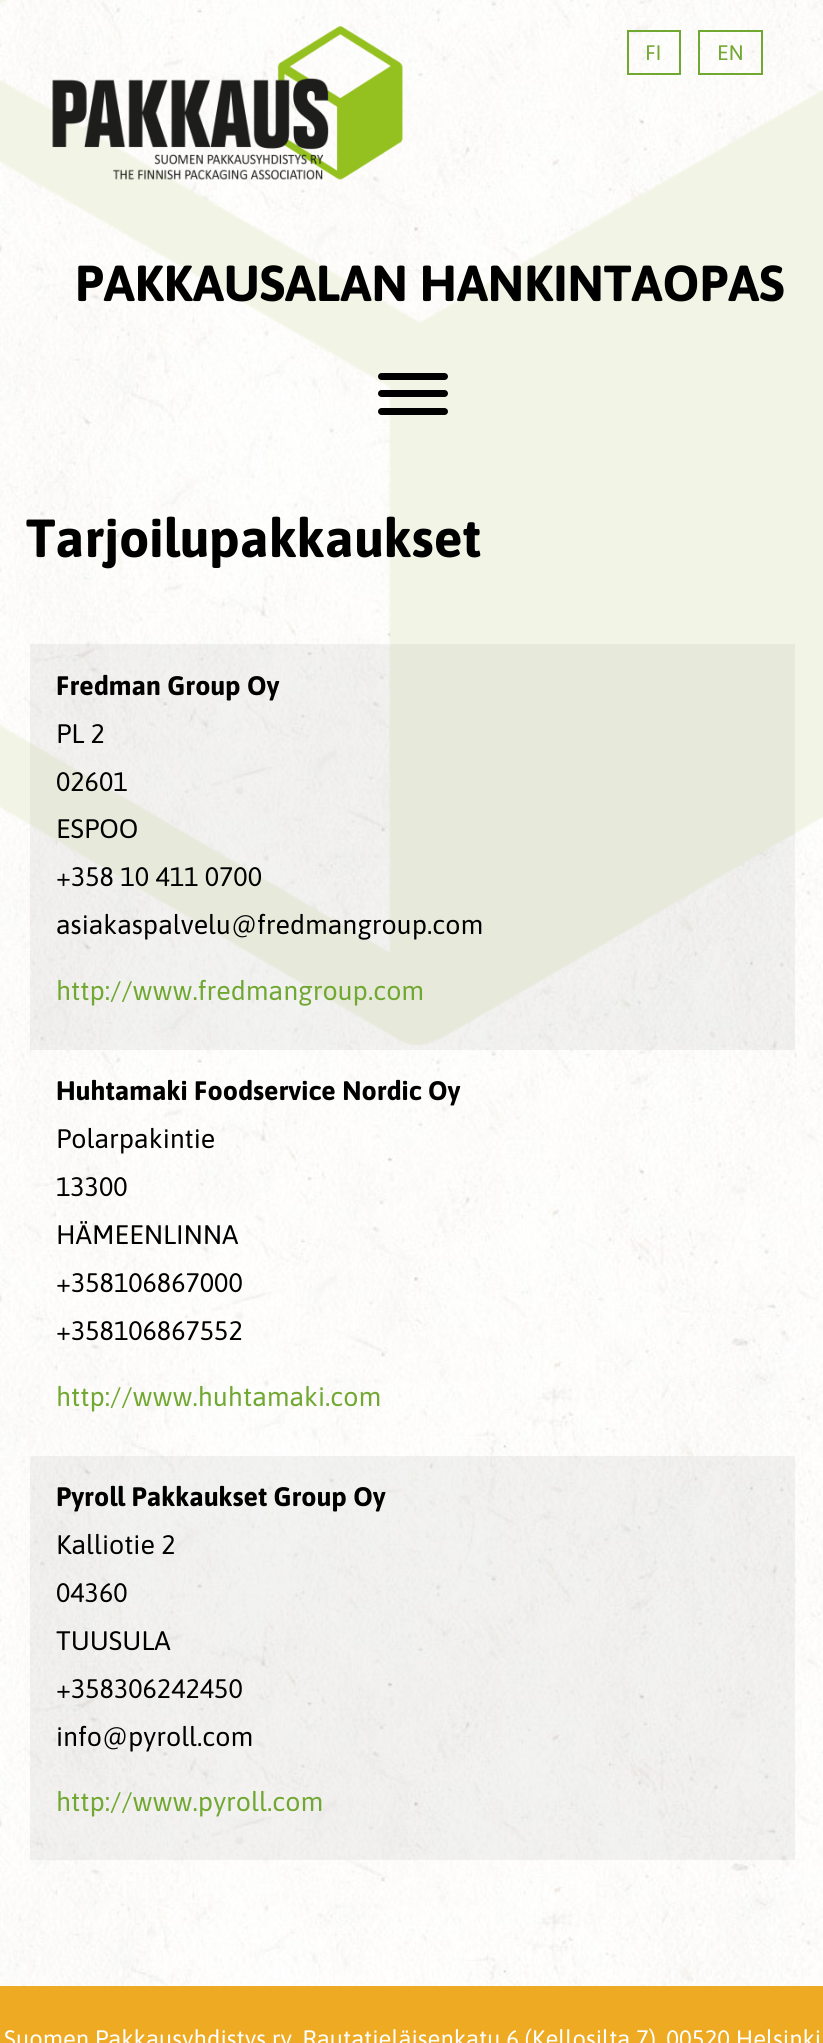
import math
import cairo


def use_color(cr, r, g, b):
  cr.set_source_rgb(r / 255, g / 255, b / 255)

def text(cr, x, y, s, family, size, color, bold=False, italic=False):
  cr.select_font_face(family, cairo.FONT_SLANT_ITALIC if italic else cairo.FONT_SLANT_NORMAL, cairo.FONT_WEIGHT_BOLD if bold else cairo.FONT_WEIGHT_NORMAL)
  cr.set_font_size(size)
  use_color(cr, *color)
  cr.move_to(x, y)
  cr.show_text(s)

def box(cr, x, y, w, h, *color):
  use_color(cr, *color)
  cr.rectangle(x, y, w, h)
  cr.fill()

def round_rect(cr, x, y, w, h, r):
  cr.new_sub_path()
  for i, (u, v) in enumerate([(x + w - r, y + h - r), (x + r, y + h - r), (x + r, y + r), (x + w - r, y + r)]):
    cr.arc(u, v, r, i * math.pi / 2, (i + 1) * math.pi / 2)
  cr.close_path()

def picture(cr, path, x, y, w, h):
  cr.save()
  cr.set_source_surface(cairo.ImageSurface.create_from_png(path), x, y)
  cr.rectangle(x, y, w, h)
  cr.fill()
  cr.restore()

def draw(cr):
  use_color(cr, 255, 255, 255)
  cr.paint()
  picture(cr, "img_01.png", 0, 0, 823, 1986)
  picture(cr, "img_02.png", 0, 0, 823, 1045)
  picture(cr, "img_03.png", 52, 26, 351, 154)
  cr.rectangle(628, 31, 52, 43)
  use_color(cr, 113, 168, 50)
  cr.stroke()
  cr.rectangle(699, 31, 63, 43)
  cr.stroke()
  use_color(cr, 0, 0, 0)
  round_rect(cr, 378, 390, 70, 7, 3.5)
  cr.fill()
  round_rect(cr, 378, 373, 70, 7, 3.5)
  cr.fill()
  round_rect(cr, 378, 408, 70, 7, 3.5)
  cr.fill()
  cr.set_source_rgba(0, 0, 0, 0.05)
  cr.rectangle(30, 644, 765, 406)
  cr.fill()
  cr.rectangle(30, 1456, 765, 404)
  cr.fill()
  box(cr, 0, 1986, 823, 57, 238, 170, 35)
  text(cr, 645, 60, "FI", "Asap", 21, (113, 168, 50))
  text(cr, 717, 60, "EN", "Asap", 21, (113, 168, 50))
  text(cr, 75, 301, "PAKKAUSALAN HANKINTAOPAS", "Asap", 50.5, (0, 0, 0), bold=True)
  text(cr, 26, 557, "Tarjoilupakkaukset", "Asap", 53.5, (0, 0, 0), bold=True)
  text(cr, 56, 695, "Fredman Group Oy", "Asap", 26.75, (0, 0, 0), bold=True)
  text(cr, 56, 743, "PL 2", "Asap", 26.75, (0, 0, 0))
  text(cr, 56, 791, "02601", "Asap", 26.75, (0, 0, 0))
  text(cr, 56, 838, "ESPOO", "Asap", 26.75, (0, 0, 0))
  text(cr, 56, 886, "+358 10 411 0700", "Asap", 26.75, (0, 0, 0))
  text(cr, 56, 934, "asiakaspalvelu@fredmangroup.com", "Asap", 26.75, (0, 0, 0))
  text(cr, 56, 1000, "http://www.fredmangroup.com", "Asap", 26.75, (113, 168, 50))
  text(cr, 56, 1100, "Huhtamaki Foodservice Nordic Oy", "Asap", 26.75, (0, 0, 0), bold=True)
  text(cr, 56, 1148, "Polarpakintie", "Asap", 26.75, (0, 0, 0))
  text(cr, 56, 1196, "13300", "Asap", 26.75, (0, 0, 0))
  text(cr, 56, 1244, "HÄMEENLINNA", "Asap", 26.75, (0, 0, 0))
  text(cr, 56, 1292, "+358106867000", "Asap", 26.75, (0, 0, 0))
  text(cr, 56, 1340, "+358106867552", "Asap", 26.75, (0, 0, 0))
  text(cr, 56, 1406, "http://www.huhtamaki.com", "Asap", 26.75, (113, 168, 50))
  text(cr, 56, 1506, "Pyroll Pakkaukset Group Oy", "Asap", 26.75, (0, 0, 0), bold=True)
  text(cr, 56, 1554, "Kalliotie 2", "Asap", 26.75, (0, 0, 0))
  text(cr, 56, 1602, "04360", "Asap", 26.75, (0, 0, 0))
  text(cr, 56, 1650, "TUUSULA", "Asap", 26.75, (0, 0, 0))
  text(cr, 56, 1698, "+358306242450", "Asap", 26.75, (0, 0, 0))
  text(cr, 56, 1746, "info@pyroll.com", "Asap", 26.75, (0, 0, 0))
  text(cr, 56, 1811, "http://www.pyroll.com", "Asap", 26.75, (113, 168, 50))
  text(cr, 4, 2047, "Suomen Pakkausyhdistys ry, Rautatieläisenkatu 6 (Kellosilta 7), 00520 Helsinki", "Asap", 23.8, (255, 255, 255))


surface = cairo.ImageSurface(cairo.FORMAT_RGB24, 823, 2043)
cr = cairo.Context(surface)
options = cairo.FontOptions()
options.set_hint_metrics(cairo.HINT_METRICS_OFF)
options.set_hint_style(cairo.HINT_STYLE_NONE)
cr.set_font_options(options)
cr.set_miter_limit(4)
draw(cr)
surface.write_to_png("out.png")
